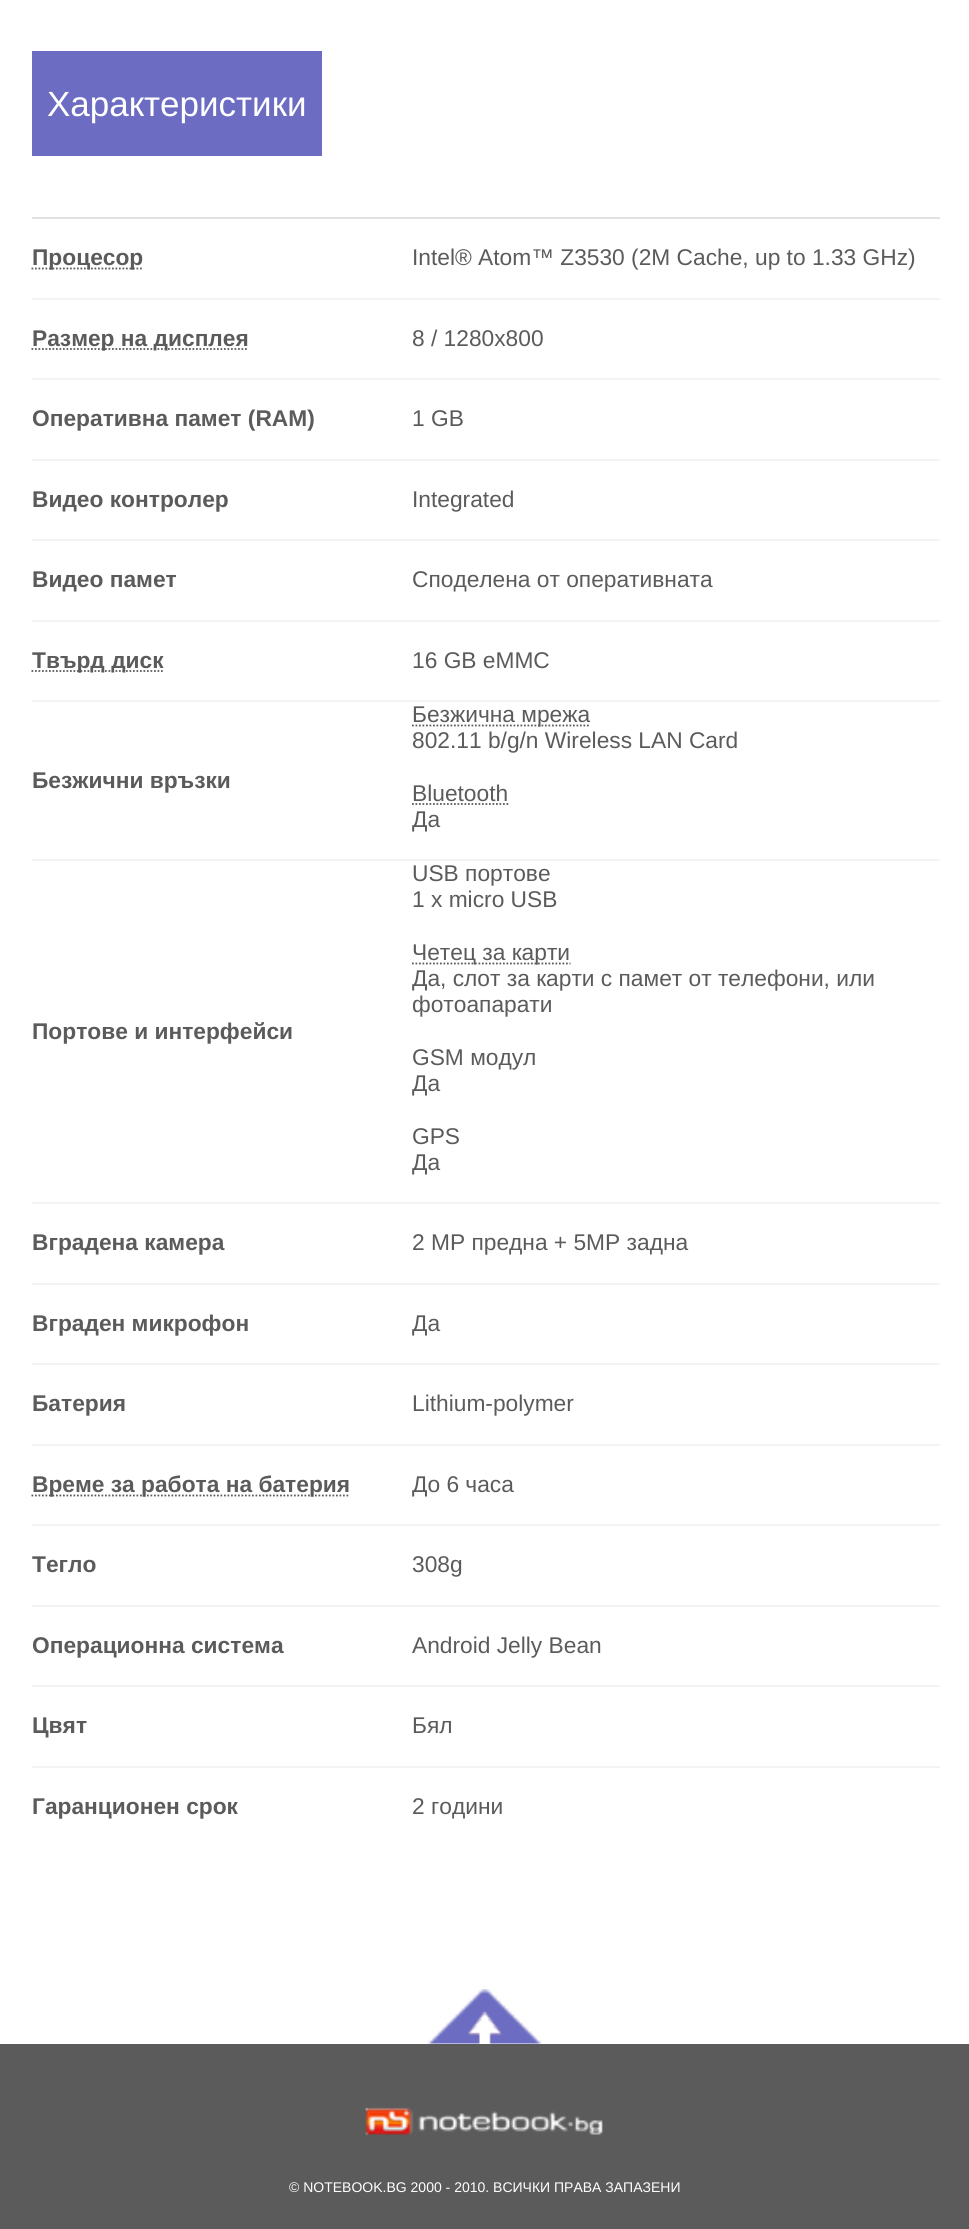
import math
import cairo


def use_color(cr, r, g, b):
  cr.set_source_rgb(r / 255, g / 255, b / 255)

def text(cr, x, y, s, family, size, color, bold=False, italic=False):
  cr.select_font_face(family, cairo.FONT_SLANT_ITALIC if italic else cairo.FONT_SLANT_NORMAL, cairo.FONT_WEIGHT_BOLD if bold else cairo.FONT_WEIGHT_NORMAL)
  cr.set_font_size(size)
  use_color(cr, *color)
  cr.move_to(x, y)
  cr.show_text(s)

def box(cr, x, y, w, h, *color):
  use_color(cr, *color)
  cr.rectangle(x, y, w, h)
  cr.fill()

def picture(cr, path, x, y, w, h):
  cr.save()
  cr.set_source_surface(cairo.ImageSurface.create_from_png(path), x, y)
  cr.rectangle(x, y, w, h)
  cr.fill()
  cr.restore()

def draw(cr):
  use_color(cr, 255, 255, 255)
  cr.paint()
  box(cr, 32, 51, 290, 105, 108, 108, 194)
  box(cr, 32, 217, 908, 2, 225, 225, 225)
  box(cr, 32, 298, 908, 2, 243, 243, 243)
  cr.new_path()
  cr.move_to(31.5, 268.5)
  cr.line_to(142.5, 268.5)
  use_color(cr, 91, 91, 91)
  cr.set_line_width(1.8)
  cr.set_dash([1.75, 1.75])
  cr.stroke()
  box(cr, 32, 378, 908, 2, 243, 243, 243)
  cr.new_path()
  cr.move_to(31.5, 349)
  cr.line_to(248.5, 349)
  use_color(cr, 91, 91, 91)
  cr.stroke()
  box(cr, 32, 459, 908, 2, 243, 243, 243)
  box(cr, 32, 539, 908, 2, 243, 243, 243)
  box(cr, 32, 620, 908, 2, 243, 243, 243)
  box(cr, 32, 700, 908, 2, 243, 243, 243)
  cr.new_path()
  cr.move_to(31.5, 671)
  cr.line_to(163, 671)
  use_color(cr, 91, 91, 91)
  cr.stroke()
  box(cr, 32, 859, 908, 2, 243, 243, 243)
  cr.new_path()
  cr.move_to(412, 725.5)
  cr.line_to(590.5, 725.5)
  use_color(cr, 91, 91, 91)
  cr.stroke()
  cr.new_path()
  cr.move_to(412, 804)
  cr.line_to(508.5, 804)
  cr.stroke()
  box(cr, 32, 1202, 908, 2, 243, 243, 243)
  cr.new_path()
  cr.move_to(412, 963.5)
  cr.line_to(570.5, 963.5)
  use_color(cr, 91, 91, 91)
  cr.stroke()
  box(cr, 32, 1283, 908, 2, 243, 243, 243)
  box(cr, 32, 1363, 908, 2, 243, 243, 243)
  box(cr, 32, 1444, 908, 2, 243, 243, 243)
  box(cr, 32, 1524, 908, 2, 243, 243, 243)
  cr.new_path()
  cr.move_to(31.5, 1495.5)
  cr.line_to(349.5, 1495.5)
  use_color(cr, 91, 91, 91)
  cr.stroke()
  box(cr, 32, 1605, 908, 2, 243, 243, 243)
  box(cr, 32, 1685, 908, 2, 243, 243, 243)
  box(cr, 32, 1766, 908, 2, 243, 243, 243)
  picture(cr, "img_01.png", 427, 1989, 115, 55)
  box(cr, 0, 2044, 969, 185, 91, 91, 91)
  picture(cr, "img_02.png", 365, 2107, 238, 28)
  text(cr, 47, 116, "Характеристики", "Liberation Sans", 35, (255, 255, 255))
  text(cr, 32, 265, "Процесор", "Liberation Sans", 22.75, (91, 91, 91), bold=True)
  text(cr, 412, 265, "Intel® Atom™ Z3530 (2M Cache, up to 1.33 GHz)", "Liberation Sans", 22.75, (91, 91, 91))
  text(cr, 32, 346, "Размер на дисплея", "Liberation Sans", 22.75, (91, 91, 91), bold=True)
  text(cr, 412, 346, "8 / 1280x800", "Liberation Sans", 22.75, (91, 91, 91))
  text(cr, 32, 426, "Оперативна памет (RAM)", "Liberation Sans", 22.75, (91, 91, 91), bold=True)
  text(cr, 412, 426, "1 GB", "Liberation Sans", 22.75, (91, 91, 91))
  text(cr, 32, 507, "Видео контролер", "Liberation Sans", 22.75, (91, 91, 91), bold=True)
  text(cr, 412, 507, "Integrated", "Liberation Sans", 22.75, (91, 91, 91))
  text(cr, 32, 587, "Видео памет", "Liberation Sans", 22.75, (91, 91, 91), bold=True)
  text(cr, 412, 587, "Споделена от оперативната", "Liberation Sans", 22.75, (91, 91, 91))
  text(cr, 32, 668, "Твърд диск", "Liberation Sans", 22.75, (91, 91, 91), bold=True)
  text(cr, 412, 668, "16 GB eMMC", "Liberation Sans", 22.75, (91, 91, 91))
  text(cr, 32, 788, "Безжични връзки", "Liberation Sans", 22.75, (91, 91, 91), bold=True)
  text(cr, 412, 722, "Безжична мрежа", "Liberation Sans", 22.75, (91, 91, 91))
  text(cr, 412, 748, "802.11 b/g/n Wireless LAN Card", "Liberation Sans", 22.75, (91, 91, 91))
  text(cr, 412, 801, "Bluetooth", "Liberation Sans", 22.75, (91, 91, 91))
  text(cr, 412, 827, "Да", "Liberation Sans", 22.75, (91, 91, 91))
  text(cr, 32, 1039, "Портове и интерфейси", "Liberation Sans", 22.75, (91, 91, 91), bold=True)
  text(cr, 412, 881, "USB портове", "Liberation Sans", 22.75, (91, 91, 91))
  text(cr, 412, 907, "1 x micro USB", "Liberation Sans", 22.75, (91, 91, 91))
  text(cr, 412, 960, "Четец за карти", "Liberation Sans", 22.75, (91, 91, 91))
  text(cr, 412, 986, "Да, слот за карти с памет от телефони, или", "Liberation Sans", 22.75, (91, 91, 91))
  text(cr, 412, 1012, "фотоапарати", "Liberation Sans", 22.75, (91, 91, 91))
  text(cr, 412, 1065, "GSM модул", "Liberation Sans", 22.75, (91, 91, 91))
  text(cr, 412, 1091, "Да", "Liberation Sans", 22.75, (91, 91, 91))
  text(cr, 412, 1144, "GPS", "Liberation Sans", 22.75, (91, 91, 91))
  text(cr, 412, 1170, "Да", "Liberation Sans", 22.75, (91, 91, 91))
  text(cr, 32, 1250, "Вградена камера", "Liberation Sans", 22.75, (91, 91, 91), bold=True)
  text(cr, 412, 1250, "2 MP предна + 5MP задна", "Liberation Sans", 22.75, (91, 91, 91))
  text(cr, 32, 1331, "Вграден микрофон", "Liberation Sans", 22.75, (91, 91, 91), bold=True)
  text(cr, 412, 1331, "Да", "Liberation Sans", 22.75, (91, 91, 91))
  text(cr, 32, 1411, "Батерия", "Liberation Sans", 22.75, (91, 91, 91), bold=True)
  text(cr, 412, 1411, "Lithium-polymer", "Liberation Sans", 22.75, (91, 91, 91))
  text(cr, 32, 1492, "Време за работа на батерия", "Liberation Sans", 22.75, (91, 91, 91), bold=True)
  text(cr, 412, 1492, "До 6 часа", "Liberation Sans", 22.75, (91, 91, 91))
  text(cr, 32, 1572, "Тегло", "Liberation Sans", 22.75, (91, 91, 91), bold=True)
  text(cr, 412, 1572, "308g", "Liberation Sans", 22.75, (91, 91, 91))
  text(cr, 32, 1653, "Операционна система", "Liberation Sans", 22.75, (91, 91, 91), bold=True)
  text(cr, 412, 1653, "Android Jelly Bean", "Liberation Sans", 22.75, (91, 91, 91))
  text(cr, 32, 1733, "Цвят", "Liberation Sans", 22.75, (91, 91, 91), bold=True)
  text(cr, 412, 1733, "Бял", "Liberation Sans", 22.75, (91, 91, 91))
  text(cr, 32, 1814, "Гаранционен срок", "Liberation Sans", 22.75, (91, 91, 91), bold=True)
  text(cr, 412, 1814, "2 години", "Liberation Sans", 22.75, (91, 91, 91))
  text(cr, 289, 2192, "© NOTEBOOK.BG 2000 - 2010. ВСИЧКИ ПРАВА ЗАПАЗЕНИ", "Liberation Sans", 14, (255, 255, 255))


surface = cairo.ImageSurface(cairo.FORMAT_RGB24, 969, 2229)
cr = cairo.Context(surface)
options = cairo.FontOptions()
options.set_hint_metrics(cairo.HINT_METRICS_OFF)
options.set_hint_style(cairo.HINT_STYLE_NONE)
cr.set_font_options(options)
cr.set_miter_limit(4)
draw(cr)
surface.write_to_png("out.png")
